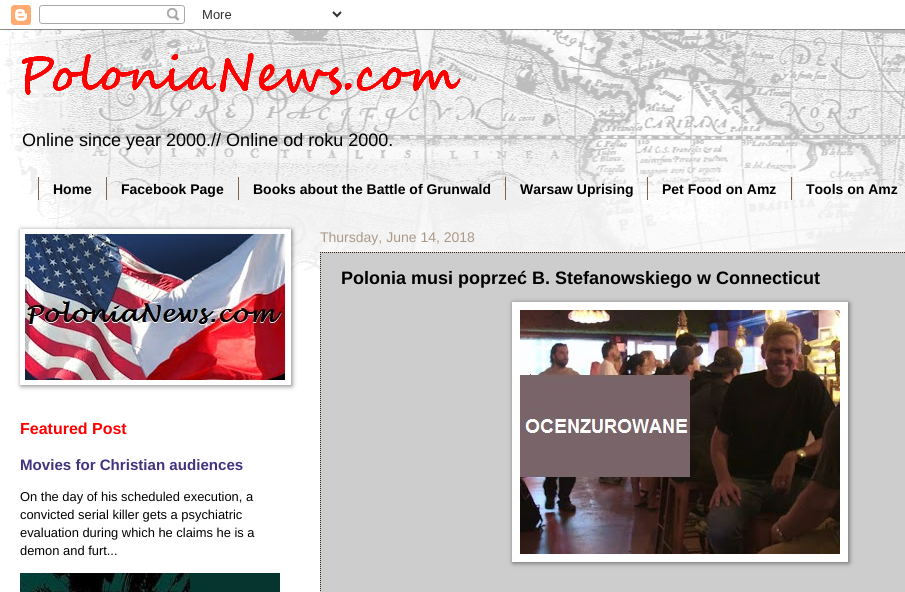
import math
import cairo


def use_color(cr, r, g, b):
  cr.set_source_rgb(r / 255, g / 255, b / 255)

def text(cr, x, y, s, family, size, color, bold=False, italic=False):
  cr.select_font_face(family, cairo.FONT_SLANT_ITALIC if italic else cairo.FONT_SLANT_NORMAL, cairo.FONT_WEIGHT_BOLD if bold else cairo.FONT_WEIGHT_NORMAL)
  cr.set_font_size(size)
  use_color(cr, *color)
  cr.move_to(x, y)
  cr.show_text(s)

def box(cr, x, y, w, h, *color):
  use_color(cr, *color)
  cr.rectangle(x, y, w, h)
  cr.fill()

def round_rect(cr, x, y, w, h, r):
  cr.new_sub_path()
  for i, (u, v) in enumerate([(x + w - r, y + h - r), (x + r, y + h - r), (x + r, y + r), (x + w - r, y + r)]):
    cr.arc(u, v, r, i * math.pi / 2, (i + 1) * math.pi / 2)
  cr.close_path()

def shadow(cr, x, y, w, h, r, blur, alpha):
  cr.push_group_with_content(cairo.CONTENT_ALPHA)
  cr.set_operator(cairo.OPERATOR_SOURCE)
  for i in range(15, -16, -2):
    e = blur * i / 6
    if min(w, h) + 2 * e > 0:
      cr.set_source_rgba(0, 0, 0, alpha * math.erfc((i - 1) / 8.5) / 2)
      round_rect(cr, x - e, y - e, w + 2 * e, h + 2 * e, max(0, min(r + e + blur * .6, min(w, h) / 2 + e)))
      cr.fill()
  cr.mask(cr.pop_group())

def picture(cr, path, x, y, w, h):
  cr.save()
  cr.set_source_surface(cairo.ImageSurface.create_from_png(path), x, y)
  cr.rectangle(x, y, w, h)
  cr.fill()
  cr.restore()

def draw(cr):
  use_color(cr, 255, 255, 255)
  cr.paint()
  picture(cr, "img_01.png", 0, 5, 905, 25)
  picture(cr, "img_02.png", 3, 30, 902, 240)
  picture(cr, "img_03.png", 22, 53, 439, 42)
  box(cr, 106, 177, 1, 23, 119, 102, 85)
  box(cr, 38, 177, 1, 23, 119, 102, 85)
  box(cr, 238, 177, 1, 23, 119, 102, 85)
  box(cr, 505, 177, 1, 23, 119, 102, 85)
  box(cr, 647, 177, 1, 23, 119, 102, 85)
  box(cr, 791, 177, 1, 23, 119, 102, 85)
  box(cr, 320, 252, 585, 340, 205, 205, 205)
  cr.new_path()
  cr.move_to(320, 252.5)
  cr.line_to(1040, 252.5)
  use_color(cr, 51, 34, 17)
  cr.set_line_width(1)
  cr.set_dash([1, 1])
  cr.stroke()
  cr.new_path()
  cr.move_to(320.5, 252)
  cr.line_to(320.5, 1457)
  cr.stroke()
  use_color(cr, 0, 0, 0)
  shadow(cr, 513, 303, 336, 260, 0, 2.5, 0.5)
  box(cr, 512, 302, 336, 260, 255, 255, 255)
  picture(cr, "img_04.png", 520, 310, 320, 244)
  use_color(cr, 0, 0, 0)
  shadow(cr, 21, 230, 271, 156, 0, 2.5, 0.5)
  box(cr, 20, 229, 271, 156, 255, 255, 255)
  picture(cr, "img_05.png", 25, 234, 261, 146)
  picture(cr, "img_06.png", 20, 573, 260, 19)
  text(cr, 22, 146, "Online since year 2000.// Online od roku 2000.", "Liberation Sans", 18, (0, 0, 0))
  text(cr, 53, 194, "Home", "Liberation Sans", 14, (0, 0, 0), bold=True)
  text(cr, 121, 194, "Facebook Page", "Liberation Sans", 14, (0, 0, 0), bold=True)
  text(cr, 253, 194, "Books about the Battle of Grunwald", "Liberation Sans", 14, (0, 0, 0), bold=True)
  text(cr, 520, 194, "Warsaw Uprising", "Liberation Sans", 14, (0, 0, 0), bold=True)
  text(cr, 662, 194, "Pet Food on Amz", "Liberation Sans", 14, (0, 0, 0), bold=True)
  text(cr, 806, 194, "Tools on Amz", "Liberation Sans", 14, (0, 0, 0), bold=True)
  text(cr, 320, 242, "Thursday, June 14, 2018", "Liberation Sans", 14, (170, 153, 136))
  text(cr, 341, 284, "Polonia musi poprzeć B. Stefanowskiego w Connecticut", "Liberation Sans", 18, (0, 0, 0), bold=True)
  text(cr, 20, 434, "Featured Post", "Liberation Sans", 16, (255, 0, 0), bold=True)
  text(cr, 20, 470, "Movies for Christian audiences", "Liberation Sans", 15.1, (67, 50, 127), bold=True)
  text(cr, 20, 501, "On the day of his scheduled execution, a", "Liberation Sans", 12.9, (0, 0, 0))
  text(cr, 20, 519, "convicted serial killer gets a psychiatric", "Liberation Sans", 12.9, (0, 0, 0))
  text(cr, 20, 537, "evaluation during which he claims he is a", "Liberation Sans", 12.9, (0, 0, 0))
  text(cr, 20, 555, "demon and furt...", "Liberation Sans", 12.9, (0, 0, 0))


surface = cairo.ImageSurface(cairo.FORMAT_RGB24, 905, 592)
cr = cairo.Context(surface)
options = cairo.FontOptions()
options.set_hint_metrics(cairo.HINT_METRICS_OFF)
options.set_hint_style(cairo.HINT_STYLE_NONE)
cr.set_font_options(options)
cr.set_miter_limit(4)
draw(cr)
surface.write_to_png("out.png")
